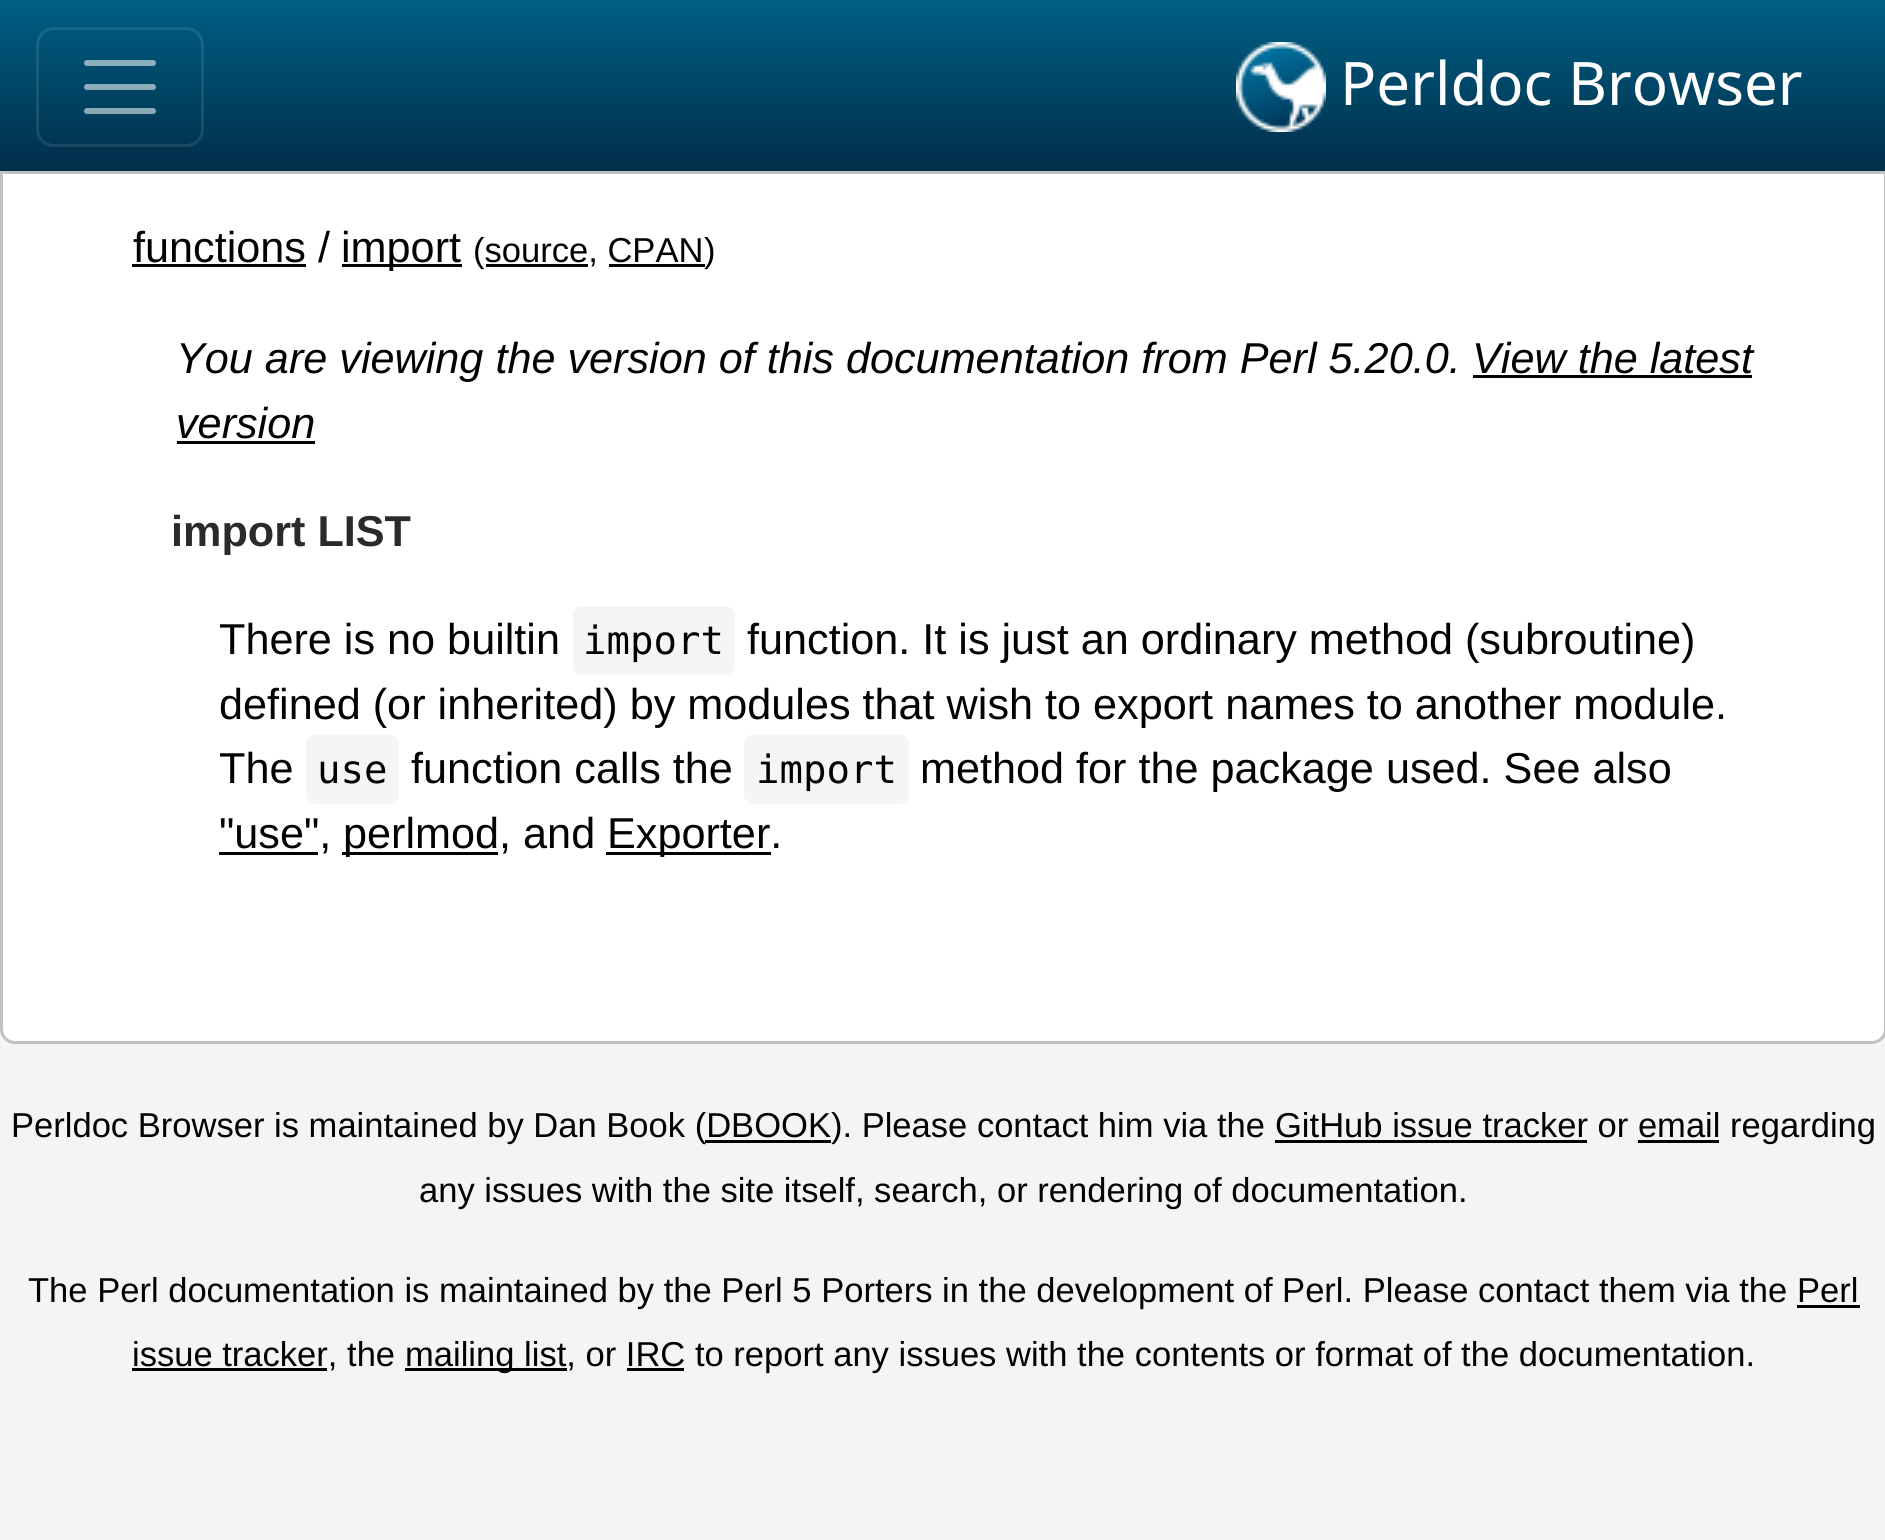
import math
import cairo


def use_color(cr, r, g, b):
  cr.set_source_rgb(r / 255, g / 255, b / 255)

def text(cr, x, y, s, family, size, color, bold=False, italic=False):
  cr.select_font_face(family, cairo.FONT_SLANT_ITALIC if italic else cairo.FONT_SLANT_NORMAL, cairo.FONT_WEIGHT_BOLD if bold else cairo.FONT_WEIGHT_NORMAL)
  cr.set_font_size(size)
  use_color(cr, *color)
  cr.move_to(x, y)
  cr.show_text(s)

def box(cr, x, y, w, h, *color):
  use_color(cr, *color)
  cr.rectangle(x, y, w, h)
  cr.fill()

def round_rect(cr, x, y, w, h, r):
  cr.new_sub_path()
  for i, (u, v) in enumerate([(x + w - r, y + h - r), (x + r, y + h - r), (x + r, y + r), (x + w - r, y + r)]):
    cr.arc(u, v, r, i * math.pi / 2, (i + 1) * math.pi / 2)
  cr.close_path()

def picture(cr, path, x, y, w, h):
  cr.save()
  cr.set_source_surface(cairo.ImageSurface.create_from_png(path), x, y)
  cr.rectangle(x, y, w, h)
  cr.fill()
  cr.restore()

def draw(cr):
  use_color(cr, 244, 244, 245)
  cr.paint()
  gradient = cairo.LinearGradient(944, 0, 944, 171)
  gradient.add_color_stop_rgba(0, 0, 0.373, 0.522, 1)
  gradient.add_color_stop_rgba(1, 0, 0.18, 0.286, 1)
  cr.set_source(gradient)
  cr.rectangle(0, 0, 1885, 171)
  cr.fill()
  round_rect(cr, 37.5, 28.5, 165, 117, 16.5)
  cr.set_source_rgba(1, 1, 1, 0.1)
  cr.set_line_width(3)
  cr.stroke()
  cr.new_path()
  cr.move_to(87, 63)
  cr.line_to(153, 63)
  cr.move_to(87, 87)
  cr.line_to(153, 87)
  cr.move_to(87, 111)
  cr.line_to(153, 111)
  cr.set_source_rgba(1, 1, 1, 0.55)
  cr.set_line_width(6)
  cr.set_line_cap(cairo.LINE_CAP_ROUND)
  cr.stroke()
  picture(cr, "img_01.png", 1236, 42, 90, 90)
  use_color(cr, 255, 255, 255)
  cr.new_path()
  cr.move_to(1.5, 172.5)
  cr.line_to(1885.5, 172.5)
  cr.line_to(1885.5, 1029)
  cr.curve_to(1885.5, 1036.5, 1879.5, 1042.5, 1872, 1042.5)
  cr.line_to(15, 1042.5)
  cr.curve_to(7.5, 1042.5, 1.5, 1036.5, 1.5, 1029)
  cr.close_path()
  cr.fill_preserve()
  use_color(cr, 193, 193, 193)
  cr.set_line_width(3)
  cr.set_line_cap(cairo.LINE_CAP_BUTT)
  cr.stroke()
  box(cr, 132, 264, 174, 3, 2, 2, 2)
  box(cr, 342, 264, 120, 3, 2, 2, 2)
  box(cr, 486, 264, 102, 3, 2, 2, 2)
  box(cr, 609, 264, 96, 3, 2, 2, 2)
  box(cr, 1473, 375, 279, 3, 2, 2, 2)
  box(cr, 177, 441, 138, 3, 2, 2, 2)
  use_color(cr, 245, 245, 245)
  round_rect(cr, 573, 606, 162, 69, 9)
  cr.fill()
  round_rect(cr, 306, 735, 93, 69, 9)
  cr.fill()
  round_rect(cr, 744, 735, 165, 69, 9)
  cr.fill()
  box(cr, 219, 852, 99, 3, 2, 2, 2)
  box(cr, 342, 852, 156, 3, 2, 2, 2)
  box(cr, 606, 852, 165, 3, 2, 2, 2)
  box(cr, 1275, 1140, 312, 3, 2, 2, 2)
  box(cr, 705, 1140, 126, 3, 2, 2, 2)
  box(cr, 1638, 1140, 81, 3, 2, 2, 2)
  box(cr, 1797, 1305, 63, 3, 2, 2, 2)
  box(cr, 132, 1368, 195, 3, 2, 2, 2)
  box(cr, 405, 1368, 162, 3, 2, 2, 2)
  box(cr, 627, 1368, 57, 3, 2, 2, 2)
  text(cr, 1340, 105, "Perldoc Browser", "Noto Sans", 60, (255, 255, 255))
  text(cr, 133, 262, "functions /", "Liberation Sans", 43.2, (2, 2, 2))
  text(cr, 341, 262, "import", "Liberation Sans", 43.2, (2, 2, 2))
  text(cr, 473, 262, "(source, CPAN", "Liberation Sans", 34.55, (2, 2, 2))
  text(cr, 704, 262, ")", "Liberation Sans", 34.55, (2, 2, 2))
  text(cr, 176, 373, "You are viewing the version of this documentation from Perl 5.20.0.", "Liberation Sans", 43.2, (2, 2, 2), italic=True)
  text(cr, 1472, 373, "View the latest", "Liberation Sans", 43.2, (2, 2, 2), italic=True)
  text(cr, 176, 438, "version", "Liberation Sans", 43.2, (2, 2, 2), italic=True)
  text(cr, 171, 546, "import LIST", "Liberation Sans", 43.2, (42, 42, 42), bold=True)
  text(cr, 219, 654, "There is no builtin", "Liberation Sans", 43.2, (2, 2, 2))
  text(cr, 583, 654, "import", "DejaVu Sans Mono", 39, (2, 2, 2))
  text(cr, 747, 654, "function. It is just an ordinary method (subroutine)", "Liberation Sans", 43.2, (2, 2, 2))
  text(cr, 219, 719, "defined (or inherited) by modules that wish to export names to another module.", "Liberation Sans", 43.2, (2, 2, 2))
  text(cr, 219, 783, "The", "Liberation Sans", 43.2, (2, 2, 2))
  text(cr, 317, 783, "use", "DejaVu Sans Mono", 39, (2, 2, 2))
  text(cr, 411, 783, "function calls the", "Liberation Sans", 43.2, (2, 2, 2))
  text(cr, 756, 783, "import", "DejaVu Sans Mono", 39, (2, 2, 2))
  text(cr, 920, 783, "method for the package used. See also", "Liberation Sans", 43.2, (2, 2, 2))
  text(cr, 219, 848, "\"use\",", "Liberation Sans", 43.2, (2, 2, 2))
  text(cr, 343, 848, "perlmod, and", "Liberation Sans", 43.2, (2, 2, 2))
  text(cr, 607, 848, "Exporter.", "Liberation Sans", 43.2, (2, 2, 2))
  text(cr, 11, 1137, "Perldoc Browser is maintained by Dan Book (DBOOK). Please contact him via the", "Liberation Sans", 34.55, (2, 2, 2))
  text(cr, 1275, 1137, "GitHub issue tracker or email regarding", "Liberation Sans", 34.55, (2, 2, 2))
  text(cr, 419, 1202, "any issues with the site itself, search, or rendering of documentation.", "Liberation Sans", 34.55, (2, 2, 2))
  text(cr, 28, 1302, "The Perl documentation is maintained by the Perl 5 Porters in the development of Perl. Please contact them via the", "Liberation Sans", 34.55, (2, 2, 2))
  text(cr, 1797, 1302, "Perl", "Liberation Sans", 34.55, (2, 2, 2))
  text(cr, 132, 1366, "issue tracker, the", "Liberation Sans", 34.55, (2, 2, 2))
  text(cr, 405, 1366, "mailing list, or IRC to report any issues with the contents or format of the documentation.", "Liberation Sans", 34.55, (2, 2, 2))


surface = cairo.ImageSurface(cairo.FORMAT_RGB24, 1885, 1540)
cr = cairo.Context(surface)
options = cairo.FontOptions()
options.set_hint_metrics(cairo.HINT_METRICS_OFF)
options.set_hint_style(cairo.HINT_STYLE_NONE)
cr.set_font_options(options)
cr.set_miter_limit(4)
draw(cr)
surface.write_to_png("out.png")
